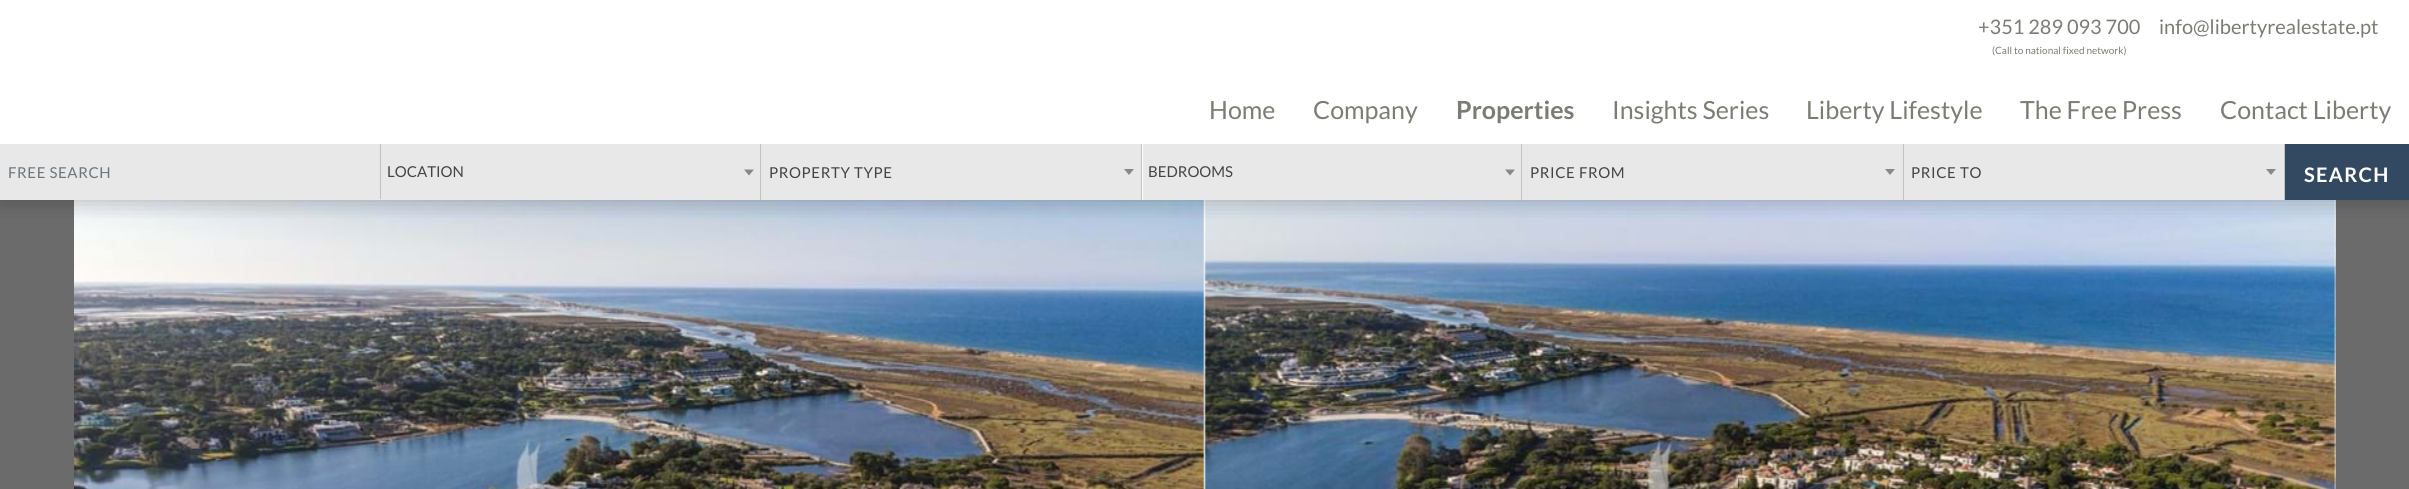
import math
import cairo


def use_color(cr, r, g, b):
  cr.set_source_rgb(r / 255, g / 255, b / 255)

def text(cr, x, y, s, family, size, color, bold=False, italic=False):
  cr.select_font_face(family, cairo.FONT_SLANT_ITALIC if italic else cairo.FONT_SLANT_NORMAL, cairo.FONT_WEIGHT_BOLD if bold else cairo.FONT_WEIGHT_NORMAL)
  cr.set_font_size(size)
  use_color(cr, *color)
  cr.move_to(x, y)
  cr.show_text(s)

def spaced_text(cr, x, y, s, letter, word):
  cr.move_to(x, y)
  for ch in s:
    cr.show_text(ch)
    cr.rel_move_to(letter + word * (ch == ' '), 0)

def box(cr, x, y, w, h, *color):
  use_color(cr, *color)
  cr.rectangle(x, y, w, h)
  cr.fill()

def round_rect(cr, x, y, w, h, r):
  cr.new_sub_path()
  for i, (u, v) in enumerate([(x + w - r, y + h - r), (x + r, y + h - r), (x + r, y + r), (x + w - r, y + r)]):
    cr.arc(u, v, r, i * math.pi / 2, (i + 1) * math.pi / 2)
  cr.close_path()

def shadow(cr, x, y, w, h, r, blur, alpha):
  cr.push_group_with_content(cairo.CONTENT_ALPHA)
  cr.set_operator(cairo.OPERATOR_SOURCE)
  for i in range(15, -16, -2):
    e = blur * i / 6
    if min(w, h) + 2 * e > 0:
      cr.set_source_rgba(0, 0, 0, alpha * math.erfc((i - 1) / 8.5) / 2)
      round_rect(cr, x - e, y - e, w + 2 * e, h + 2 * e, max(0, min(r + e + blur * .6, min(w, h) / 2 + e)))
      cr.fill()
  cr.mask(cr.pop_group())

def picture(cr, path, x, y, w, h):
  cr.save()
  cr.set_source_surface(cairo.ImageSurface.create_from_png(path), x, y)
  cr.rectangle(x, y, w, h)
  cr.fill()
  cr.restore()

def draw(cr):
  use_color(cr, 255, 255, 255)
  cr.paint()
  box(cr, 0, 200, 74, 289, 107, 107, 107)
  picture(cr, "img_01.png", 74, 200, 1130, 289)
  picture(cr, "img_02.png", 1204, 200, 1132, 289)
  picture(cr, "img_03.png", 2335, 200, 1, 289)
  box(cr, 2336, 200, 73, 289, 107, 107, 107)
  cr.save()
  cr.rectangle(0, 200, 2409, 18)
  cr.clip()
  use_color(cr, 0, 0, 0)
  shadow(cr, 0, 0, 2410, 200, 0, 12.5, 0.25)
  cr.restore()
  box(cr, 0, 144, 380, 55, 232, 232, 232)
  box(cr, 380, 144, 1, 56, 194, 194, 194)
  box(cr, 0, 199, 381, 1, 232, 232, 232)
  box(cr, 381, 144, 379, 56, 232, 232, 232)
  box(cr, 760, 144, 1, 56, 194, 194, 194)
  use_color(cr, 136, 136, 136)
  cr.new_path()
  cr.move_to(744, 169.5)
  cr.line_to(754, 169.5)
  cr.line_to(749, 175.5)
  cr.close_path()
  cr.fill()
  box(cr, 1141, 144, 1, 56, 194, 194, 194)
  box(cr, 761, 144, 380, 56, 232, 232, 232)
  use_color(cr, 136, 136, 136)
  cr.new_path()
  cr.move_to(1124, 169)
  cr.line_to(1134, 169)
  cr.line_to(1129, 175)
  cr.close_path()
  cr.fill()
  box(cr, 1143, 144, 760, 56, 232, 232, 232)
  box(cr, 1521, 144, 1, 56, 194, 194, 194)
  use_color(cr, 136, 136, 136)
  cr.new_path()
  cr.move_to(1505, 169.5)
  cr.line_to(1515, 169.5)
  cr.line_to(1510, 175.5)
  cr.close_path()
  cr.fill()
  box(cr, 1903, 144, 1, 56, 194, 194, 194)
  use_color(cr, 136, 136, 136)
  cr.new_path()
  cr.move_to(1885, 169)
  cr.line_to(1895, 169)
  cr.line_to(1890, 175)
  cr.close_path()
  cr.fill()
  box(cr, 2284, 144, 1, 56, 194, 194, 194)
  box(cr, 1904, 144, 380, 56, 232, 232, 232)
  use_color(cr, 136, 136, 136)
  cr.new_path()
  cr.move_to(2266, 169)
  cr.line_to(2276, 169)
  cr.line_to(2271, 175)
  cr.close_path()
  cr.fill()
  box(cr, 2285, 144, 124, 56, 50, 73, 97)
  text(cr, 1978, 34, "+351 289 093 700", "Lato", 20, (124, 124, 116))
  text(cr, 1992, 54, "(Call to national fixed network)", "Lato", 10, (124, 124, 116))
  text(cr, 2159, 34, "info@libertyrealestate.pt", "Lato", 20, (124, 124, 116))
  text(cr, 1209, 119, "Home", "Lato", 25, (124, 124, 116))
  text(cr, 1313, 119, "Company", "Lato", 25, (124, 124, 116))
  text(cr, 1456, 119, "Properties", "Lato", 25, (124, 124, 116), bold=True)
  text(cr, 1612, 119, "Insights Series", "Lato", 25, (124, 124, 116))
  text(cr, 1806, 119, "Liberty Lifestyle", "Lato", 25, (124, 124, 116))
  text(cr, 2020, 119, "The Free Press", "Lato", 25, (124, 124, 116))
  text(cr, 2220, 119, "Contact Liberty", "Lato", 25, (124, 124, 116))
  cr.set_font_size(15)
  use_color(cr, 108, 117, 125)
  spaced_text(cr, 8, 178, "FREE SEARCH", 0.6, 0)
  text(cr, 387, 177, "LOCATION", "Lato", 15, (68, 68, 68))
  spaced_text(cr, 769, 178, "PROPERTY TYPE", 0.6, 0)
  text(cr, 1148, 177, "BEDROOMS", "Lato", 15, (68, 68, 68))
  spaced_text(cr, 1530, 178, "PRICE FROM", 0.6, 0)
  spaced_text(cr, 1911, 178, "PRICE TO", 0.6, 0)
  cr.select_font_face("Lato", cairo.FONT_SLANT_NORMAL, cairo.FONT_WEIGHT_BOLD)
  cr.set_font_size(20)
  use_color(cr, 255, 255, 255)
  spaced_text(cr, 2304, 182, "SEARCH", 1.25, 0)


surface = cairo.ImageSurface(cairo.FORMAT_RGB24, 2409, 489)
cr = cairo.Context(surface)
options = cairo.FontOptions()
options.set_hint_metrics(cairo.HINT_METRICS_OFF)
options.set_hint_style(cairo.HINT_STYLE_NONE)
cr.set_font_options(options)
cr.set_miter_limit(4)
draw(cr)
surface.write_to_png("out.png")
